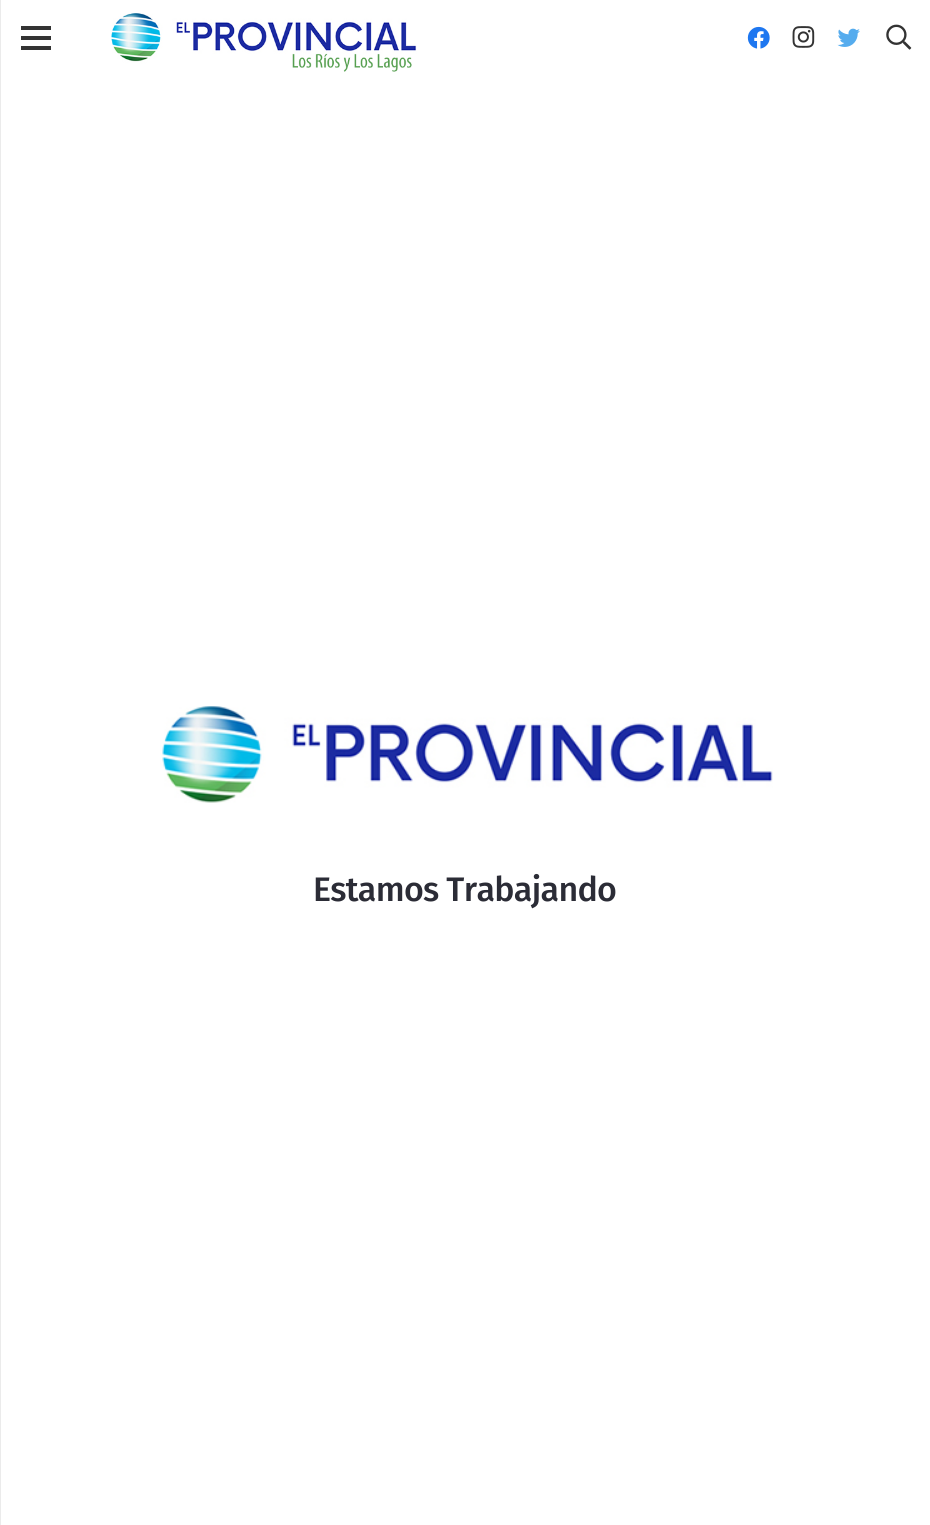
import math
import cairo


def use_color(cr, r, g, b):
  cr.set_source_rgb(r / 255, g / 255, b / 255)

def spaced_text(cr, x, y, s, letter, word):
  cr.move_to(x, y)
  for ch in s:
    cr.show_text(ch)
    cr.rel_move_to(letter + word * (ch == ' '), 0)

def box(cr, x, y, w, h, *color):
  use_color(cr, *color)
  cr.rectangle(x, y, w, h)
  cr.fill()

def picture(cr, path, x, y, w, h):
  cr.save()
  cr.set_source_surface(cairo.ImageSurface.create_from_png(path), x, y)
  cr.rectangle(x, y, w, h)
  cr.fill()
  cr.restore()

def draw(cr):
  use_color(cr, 255, 255, 255)
  cr.paint()
  box(cr, 0, 0, 1, 1525, 235, 235, 235)
  box(cr, 21, 36, 30, 4, 51, 51, 51)
  box(cr, 21, 26, 30, 4, 51, 51, 51)
  box(cr, 21, 46, 30, 4, 51, 51, 51)
  picture(cr, "img_01.png", 111, 13, 306, 59)
  picture(cr, "img_02.png", 747, 26, 23, 23)
  picture(cr, "img_03.png", 792, 26, 23, 22)
  picture(cr, "img_04.png", 837, 28, 23, 19)
  picture(cr, "img_05.png", 886, 24, 26, 26)
  picture(cr, "img_06.png", 160, 706, 613, 97)
  cr.select_font_face("Fira Sans Medium")
  cr.set_font_size(34)
  use_color(cr, 43, 44, 54)
  spaced_text(cr, 313, 901, "Estamos Trabajando", -0.7, 0)


surface = cairo.ImageSurface(cairo.FORMAT_RGB24, 930, 1525)
cr = cairo.Context(surface)
options = cairo.FontOptions()
options.set_hint_metrics(cairo.HINT_METRICS_OFF)
options.set_hint_style(cairo.HINT_STYLE_NONE)
cr.set_font_options(options)
cr.set_miter_limit(4)
draw(cr)
surface.write_to_png("out.png")
